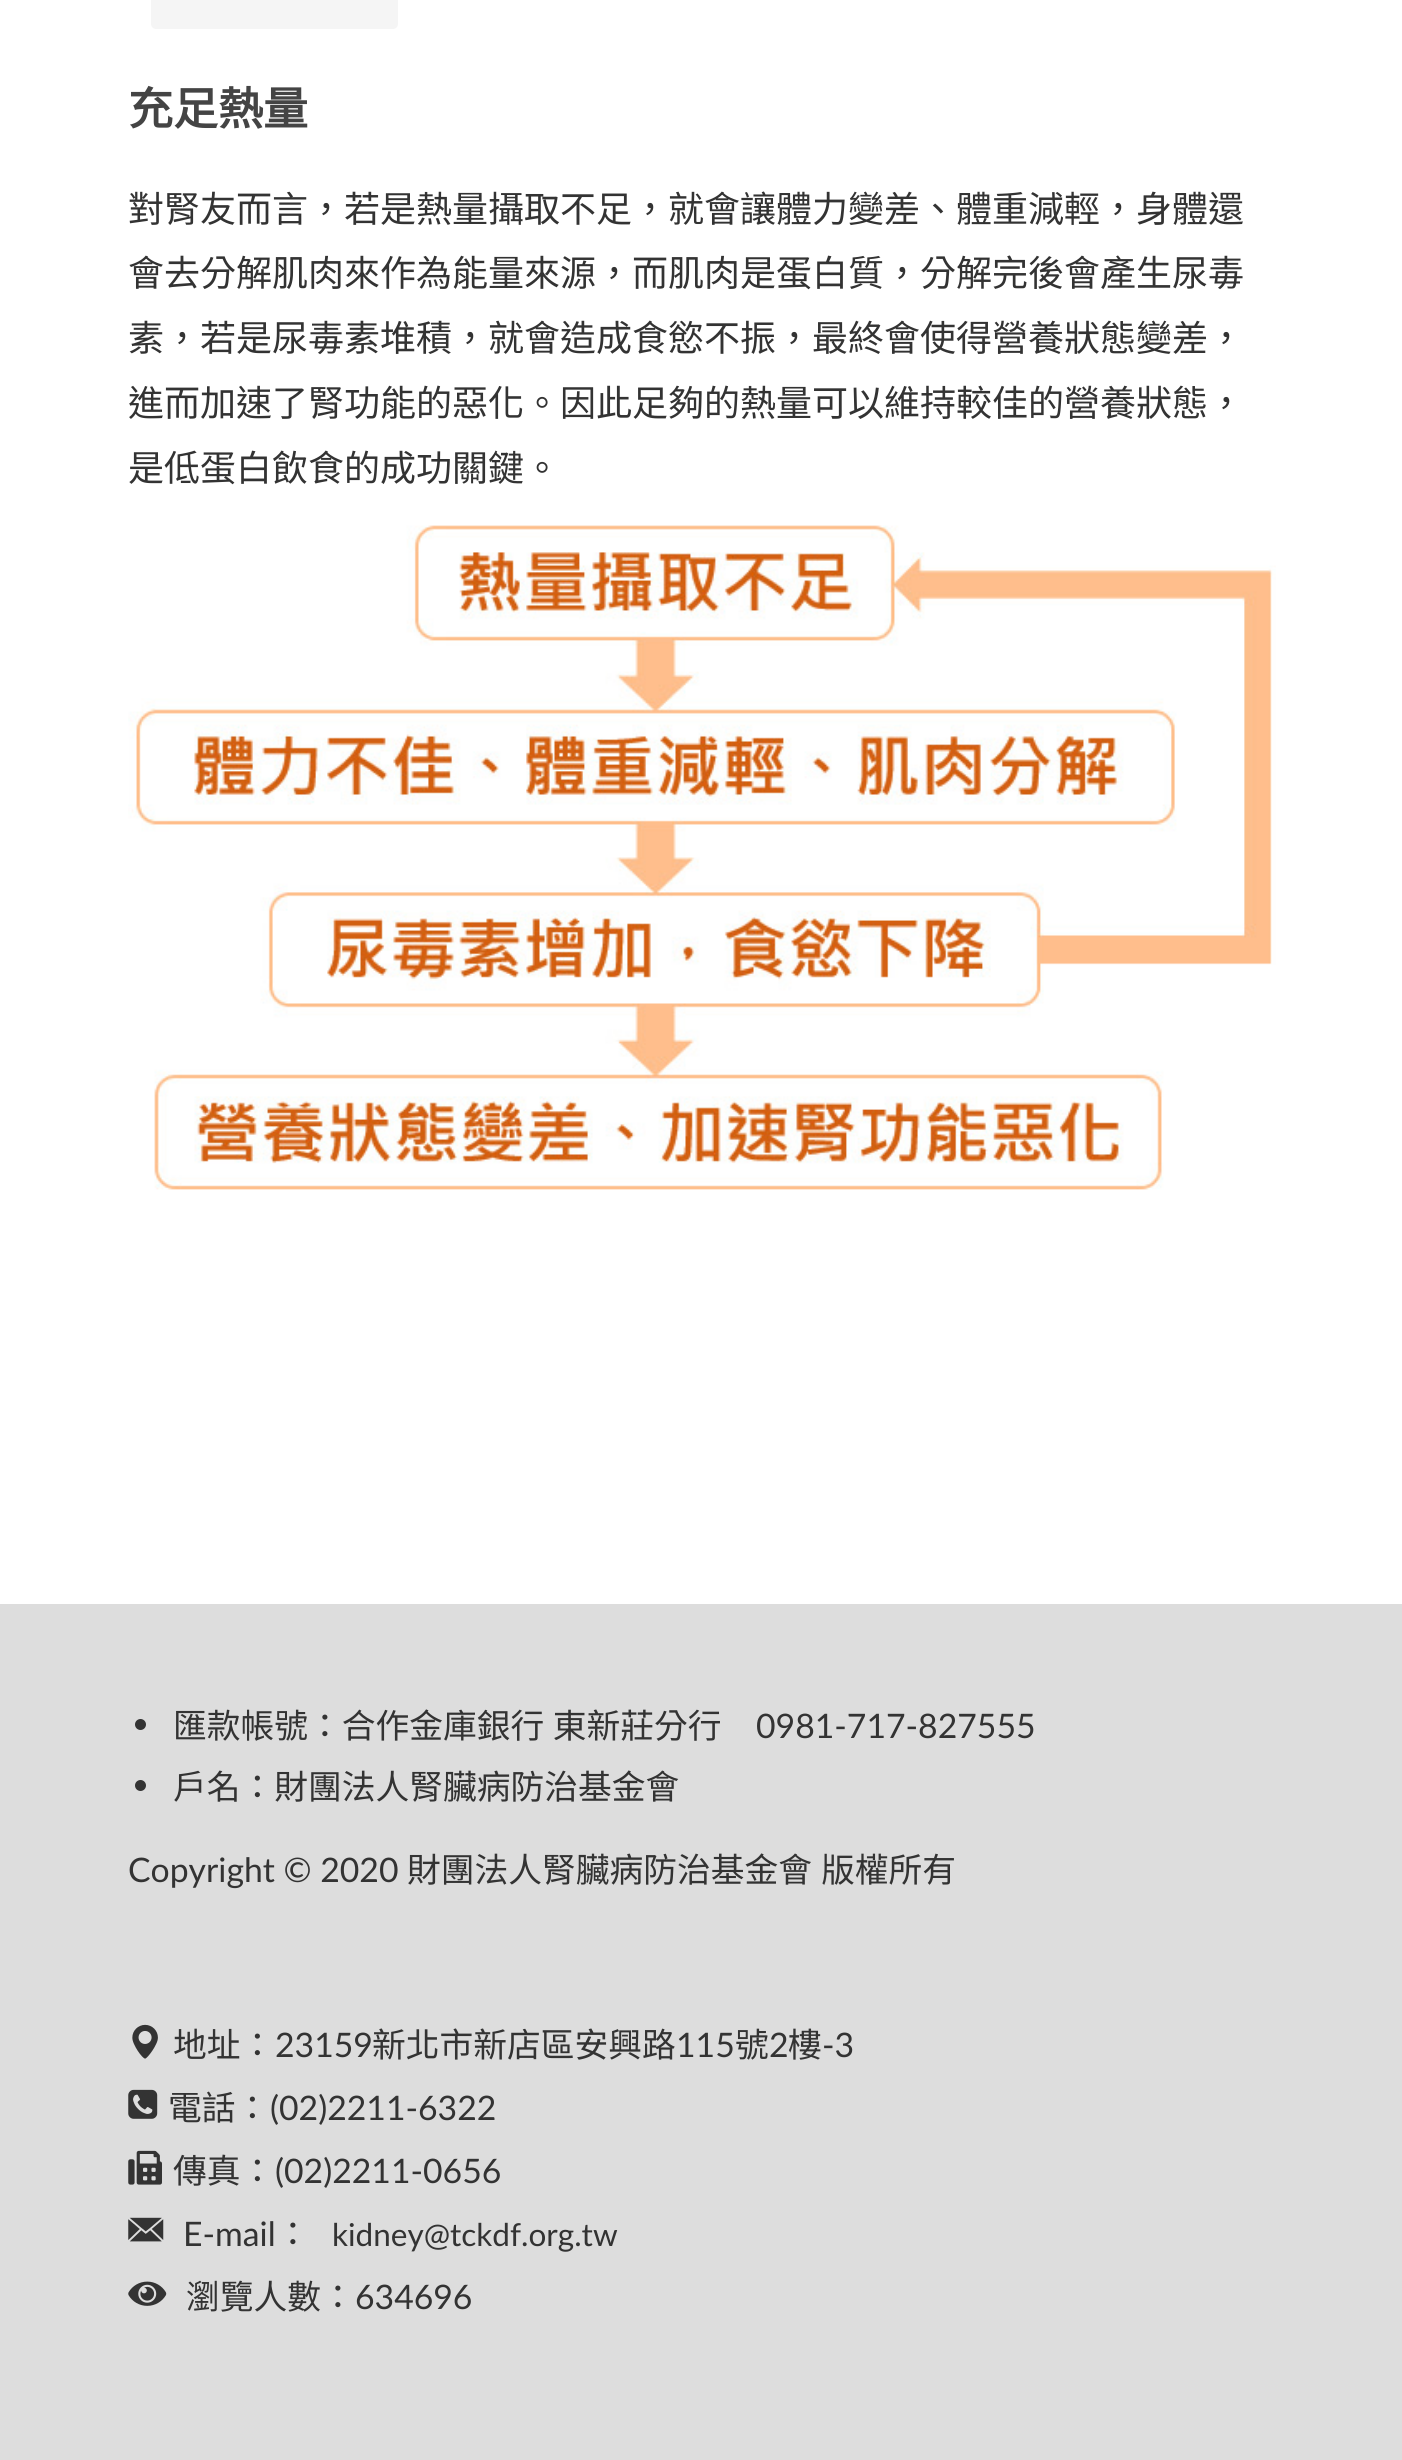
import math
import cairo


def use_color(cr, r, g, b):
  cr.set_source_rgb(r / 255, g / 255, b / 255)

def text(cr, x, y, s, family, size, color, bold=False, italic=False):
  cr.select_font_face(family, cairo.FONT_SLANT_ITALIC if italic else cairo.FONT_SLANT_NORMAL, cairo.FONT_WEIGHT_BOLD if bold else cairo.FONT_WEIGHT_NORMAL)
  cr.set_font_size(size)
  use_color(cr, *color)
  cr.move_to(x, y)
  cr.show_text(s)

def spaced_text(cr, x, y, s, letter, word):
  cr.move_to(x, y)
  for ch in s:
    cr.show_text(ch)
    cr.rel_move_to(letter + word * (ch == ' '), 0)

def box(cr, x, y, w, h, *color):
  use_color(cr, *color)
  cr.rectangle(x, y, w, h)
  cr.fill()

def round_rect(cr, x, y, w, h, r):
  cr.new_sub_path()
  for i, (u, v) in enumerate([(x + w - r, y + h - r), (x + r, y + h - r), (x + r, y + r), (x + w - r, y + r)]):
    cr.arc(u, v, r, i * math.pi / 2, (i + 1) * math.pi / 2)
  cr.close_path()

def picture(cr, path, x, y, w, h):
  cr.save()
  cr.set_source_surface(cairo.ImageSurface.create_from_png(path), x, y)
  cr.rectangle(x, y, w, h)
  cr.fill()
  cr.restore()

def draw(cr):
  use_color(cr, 255, 255, 255)
  cr.paint()
  use_color(cr, 245, 245, 245)
  round_rect(cr, 151, -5, 247, 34, 5)
  cr.fill()
  picture(cr, "img_01.png", 128, 525, 1148, 665)
  box(cr, 0, 1604, 1402, 856, 221, 221, 221)
  use_color(cr, 51, 51, 51)
  cr.arc(140.5, 1724.5, 5.5, 0, 2 * math.pi)
  cr.fill()
  cr.arc(140.5, 1785.5, 5.5, 0, 2 * math.pi)
  cr.fill()
  picture(cr, "img_02.png", 132, 2024, 26, 35)
  picture(cr, "img_03.png", 128, 2089, 30, 30)
  picture(cr, "img_04.png", 128, 2150, 34, 35)
  picture(cr, "img_05.png", 128, 2217, 36, 25)
  picture(cr, "img_06.png", 128, 2281, 39, 25)
  text(cr, 128, 125, "充足熱量", "Noto Sans CJK TC", 45, (68, 68, 68), bold=True)
  text(cr, 128, 222, "對腎友而言，若是熱量攝取不足，就會讓體力變差、體重減輕，身體還", "Noto Sans CJK TC", 36, (51, 51, 51))
  text(cr, 128, 286, "會去分解肌肉來作為能量來源，而肌肉是蛋白質，分解完後會產生尿毒", "Noto Sans CJK TC", 36, (51, 51, 51))
  text(cr, 128, 351, "素，若是尿毒素堆積，就會造成食慾不振，最終會使得營養狀態變差，", "Noto Sans CJK TC", 36, (51, 51, 51))
  text(cr, 128, 416, "進而加速了腎功能的惡化。因此足夠的熱量可以維持較佳的營養狀態，", "Noto Sans CJK TC", 36, (51, 51, 51))
  text(cr, 128, 481, "是低蛋白飲食的成功關鍵。", "Noto Sans CJK TC", 36, (51, 51, 51))
  cr.set_font_size(33.75)
  spaced_text(cr, 173, 1738, "匯款帳號：合作金庫銀行 東新莊分行", 0, 1)
  text(cr, 756, 1738, "0981-717-827555", "Lato", 33.75, (51, 51, 51))
  text(cr, 173, 1799, "戶名：財團法人腎臟病防治基金會", "Noto Sans CJK TC", 33.75, (51, 51, 51))
  text(cr, 128, 1882, "Copyright © 2020", "Lato", 33.75, (51, 51, 51))
  text(cr, 407, 1882, "財團法人腎臟病防治基金會", "Noto Sans CJK TC", 33.75, (51, 51, 51))
  text(cr, 821, 1882, "版權所有", "Noto Sans CJK TC", 33.75, (51, 51, 51))
  text(cr, 173, 2057, "地址：", "Noto Sans CJK TC", 33.75, (51, 51, 51))
  text(cr, 275, 2057, "23159", "Lato", 33.75, (51, 51, 51))
  text(cr, 372, 2057, "新北市新店區安興路", "Noto Sans CJK TC", 33.75, (51, 51, 51))
  text(cr, 676, 2057, "115", "Lato", 33.75, (51, 51, 51))
  text(cr, 735, 2057, "號", "Noto Sans CJK TC", 33.75, (51, 51, 51))
  text(cr, 769, 2057, "2", "Lato", 33.75, (51, 51, 51))
  text(cr, 788, 2057, "樓", "Noto Sans CJK TC", 33.75, (51, 51, 51))
  text(cr, 822, 2057, "-3", "Lato", 33.75, (51, 51, 51))
  text(cr, 168, 2120, "電話：", "Noto Sans CJK TC", 33.75, (51, 51, 51))
  text(cr, 270, 2120, "(02)2211-6322", "Lato", 33.75, (51, 51, 51))
  text(cr, 173, 2183, "傳真：", "Noto Sans CJK TC", 33.75, (51, 51, 51))
  text(cr, 275, 2183, "(02)2211-0656", "Lato", 33.75, (51, 51, 51))
  text(cr, 183, 2246, "E-mail", "Lato", 33.75, (51, 51, 51))
  text(cr, 276, 2246, "：", "Noto Sans CJK TC", 33.75, (51, 51, 51))
  text(cr, 332, 2246, "kidney@tckdf.org.tw", "Lato", 31.5, (51, 51, 51))
  text(cr, 186, 2309, "瀏覽人數：", "Noto Sans CJK TC", 33.75, (51, 51, 51))
  text(cr, 355, 2309, "634696", "Lato", 33.75, (51, 51, 51))


surface = cairo.ImageSurface(cairo.FORMAT_RGB24, 1402, 2460)
cr = cairo.Context(surface)
options = cairo.FontOptions()
options.set_hint_metrics(cairo.HINT_METRICS_OFF)
options.set_hint_style(cairo.HINT_STYLE_NONE)
cr.set_font_options(options)
cr.set_miter_limit(4)
draw(cr)
surface.write_to_png("out.png")
